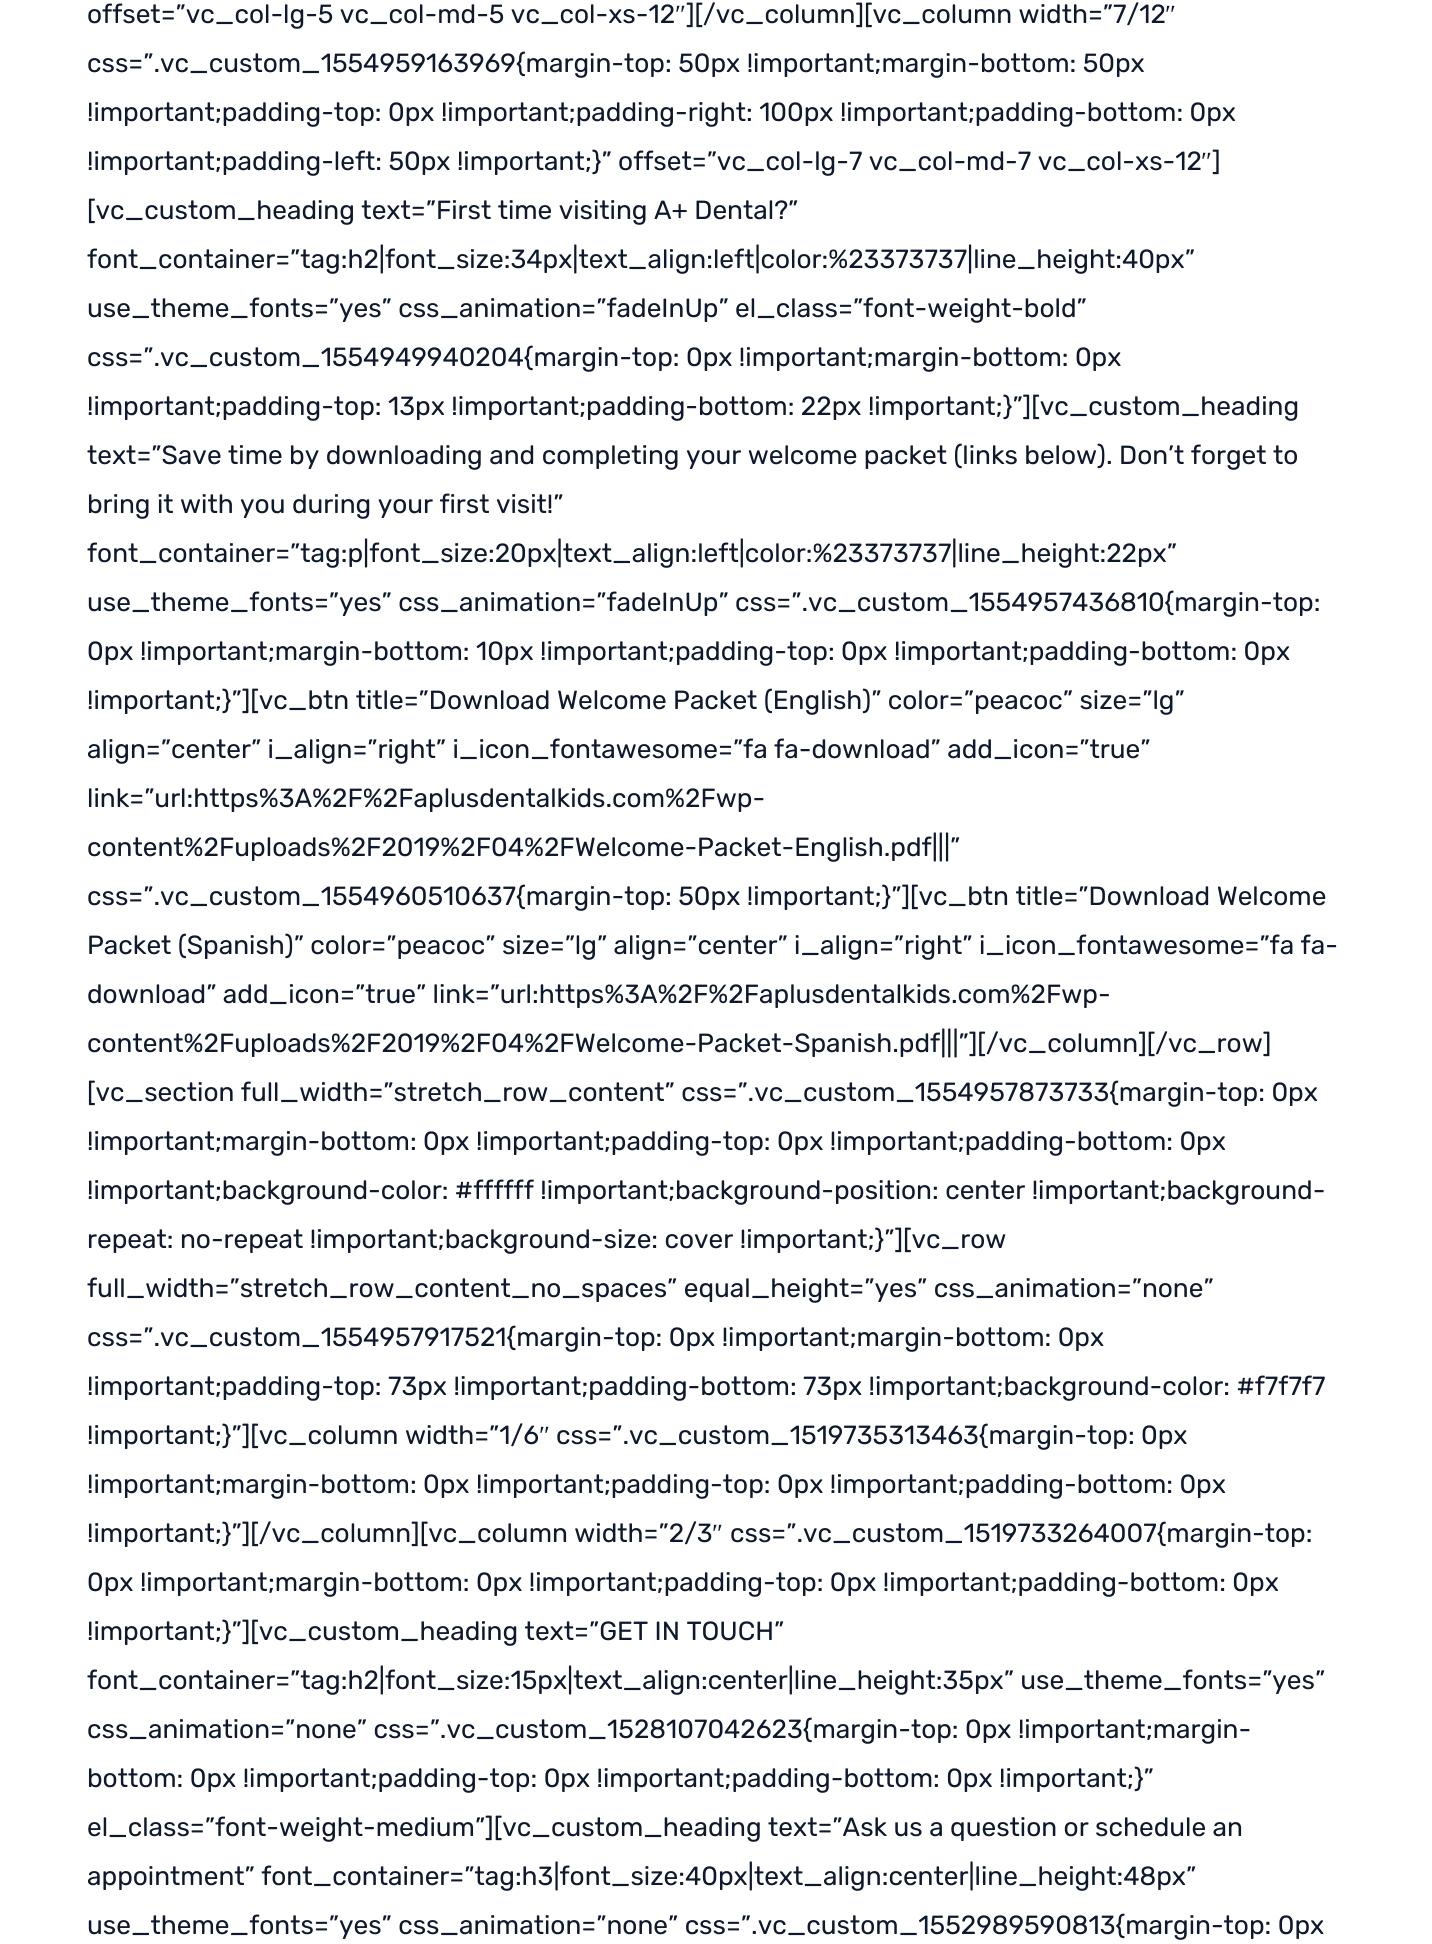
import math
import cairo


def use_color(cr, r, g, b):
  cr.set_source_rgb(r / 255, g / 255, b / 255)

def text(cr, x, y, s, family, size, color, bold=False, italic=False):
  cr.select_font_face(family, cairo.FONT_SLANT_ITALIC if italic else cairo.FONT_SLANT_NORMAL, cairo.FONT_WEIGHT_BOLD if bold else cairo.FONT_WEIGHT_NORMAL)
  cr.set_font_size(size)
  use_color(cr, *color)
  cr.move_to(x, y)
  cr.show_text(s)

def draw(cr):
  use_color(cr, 255, 255, 255)
  cr.paint()
  text(cr, 87, 23, "offset=”vc_col-lg-5 vc_col-md-5 vc_col-xs-12", "Rubik", 26.25, (15, 25, 45))
  text(cr, 675, 23, "″", "Liberation Serif", 26.25, (15, 25, 45))
  text(cr, 686, 23, "][/vc_column][vc_column width=”7/12", "Rubik", 26.25, (15, 25, 45))
  text(cr, 1165, 23, "″", "Liberation Serif", 26.25, (15, 25, 45))
  text(cr, 87, 72, "css=”.vc_custom_1554959163969{margin-top: 50px !important;margin-bottom: 50px", "Rubik", 26.25, (15, 25, 45))
  text(cr, 87, 121, "!important;padding-top: 0px !important;padding-right: 100px !important;padding-bottom: 0px", "Rubik", 26.25, (15, 25, 45))
  text(cr, 87, 170, "!important;padding-left: 50px !important;}” offset=”vc_col-lg-7 vc_col-md-7 vc_col-xs-12", "Rubik", 26.25, (15, 25, 45))
  text(cr, 1201, 170, "″", "Liberation Serif", 26.25, (15, 25, 45))
  text(cr, 1212, 170, "]", "Rubik", 26.25, (15, 25, 45))
  text(cr, 87, 219, "[vc_custom_heading text=”First time visiting A+ Dental?”", "Rubik", 26.25, (15, 25, 45))
  text(cr, 87, 268, "font_container=”tag:h2|font_size:34px|text_align:left|color:%23373737|line_height:40px”", "Rubik", 26.25, (15, 25, 45))
  text(cr, 87, 317, "use_theme_fonts=”yes” css_animation=”fadeInUp” el_class=”font-weight-bold”", "Rubik", 26.25, (15, 25, 45))
  text(cr, 87, 366, "css=”.vc_custom_1554949940204{margin-top: 0px !important;margin-bottom: 0px", "Rubik", 26.25, (15, 25, 45))
  text(cr, 87, 415, "!important;padding-top: 13px !important;padding-bottom: 22px !important;}”][vc_custom_heading", "Rubik", 26.25, (15, 25, 45))
  text(cr, 87, 464, "text=”Save time by downloading and completing your welcome packet (links below). Don’t forget to", "Rubik", 26.25, (15, 25, 45))
  text(cr, 87, 513, "bring it with you during your first visit!”", "Rubik", 26.25, (15, 25, 45))
  text(cr, 87, 562, "font_container=”tag:p|font_size:20px|text_align:left|color:%23373737|line_height:22px”", "Rubik", 26.25, (15, 25, 45))
  text(cr, 87, 611, "use_theme_fonts=”yes” css_animation=”fadeInUp” css=”.vc_custom_1554957436810{margin-top:", "Rubik", 26.25, (15, 25, 45))
  text(cr, 87, 660, "0px !important;margin-bottom: 10px !important;padding-top: 0px !important;padding-bottom: 0px", "Rubik", 26.25, (15, 25, 45))
  text(cr, 87, 709, "!important;}”][vc_btn title=”Download Welcome Packet (English)” color=”peacoc” size=”lg”", "Rubik", 26.25, (15, 25, 45))
  text(cr, 87, 758, "align=”center” i_align=”right” i_icon_fontawesome=”fa fa-download” add_icon=”true”", "Rubik", 26.25, (15, 25, 45))
  text(cr, 87, 807, "link=”url:https%3A%2F%2Faplusdentalkids.com%2Fwp-", "Rubik", 26.25, (15, 25, 45))
  text(cr, 87, 856, "content%2Fuploads%2F2019%2F04%2FWelcome-Packet-English.pdf|||”", "Rubik", 26.25, (15, 25, 45))
  text(cr, 87, 905, "css=”.vc_custom_1554960510637{margin-top: 50px !important;}”][vc_btn title=”Download Welcome", "Rubik", 26.25, (15, 25, 45))
  text(cr, 87, 954, "Packet (Spanish)” color=”peacoc” size=”lg” align=”center” i_align=”right” i_icon_fontawesome=”fa fa-", "Rubik", 26.25, (15, 25, 45))
  text(cr, 87, 1003, "download” add_icon=”true” link=”url:https%3A%2F%2Faplusdentalkids.com%2Fwp-", "Rubik", 26.25, (15, 25, 45))
  text(cr, 87, 1052, "content%2Fuploads%2F2019%2F04%2FWelcome-Packet-Spanish.pdf|||”][/vc_column][/vc_row]", "Rubik", 26.25, (15, 25, 45))
  text(cr, 87, 1101, "[vc_section full_width=”stretch_row_content” css=”.vc_custom_1554957873733{margin-top: 0px", "Rubik", 26.25, (15, 25, 45))
  text(cr, 87, 1150, "!important;margin-bottom: 0px !important;padding-top: 0px !important;padding-bottom: 0px", "Rubik", 26.25, (15, 25, 45))
  text(cr, 87, 1199, "!important;background-color: #ffffff !important;background-position: center !important;background-", "Rubik", 26.25, (15, 25, 45))
  text(cr, 87, 1248, "repeat: no-repeat !important;background-size: cover !important;}”][vc_row", "Rubik", 26.25, (15, 25, 45))
  text(cr, 87, 1297, "full_width=”stretch_row_content_no_spaces” equal_height=”yes” css_animation=”none”", "Rubik", 26.25, (15, 25, 45))
  text(cr, 87, 1346, "css=”.vc_custom_1554957917521{margin-top: 0px !important;margin-bottom: 0px", "Rubik", 26.25, (15, 25, 45))
  text(cr, 87, 1395, "!important;padding-top: 73px !important;padding-bottom: 73px !important;background-color: #f7f7f7", "Rubik", 26.25, (15, 25, 45))
  text(cr, 87, 1444, "!important;}”][vc_column width=”1/6", "Rubik", 26.25, (15, 25, 45))
  text(cr, 539, 1444, "″", "Liberation Serif", 26.25, (15, 25, 45))
  text(cr, 556, 1444, "css=”.vc_custom_1519735313463{margin-top: 0px", "Rubik", 26.25, (15, 25, 45))
  text(cr, 87, 1493, "!important;margin-bottom: 0px !important;padding-top: 0px !important;padding-bottom: 0px", "Rubik", 26.25, (15, 25, 45))
  text(cr, 87, 1542, "!important;}”][/vc_column][vc_column width=”2/3", "Rubik", 26.25, (15, 25, 45))
  text(cr, 712, 1542, "″", "Liberation Serif", 26.25, (15, 25, 45))
  text(cr, 730, 1542, "css=”.vc_custom_1519733264007{margin-top:", "Rubik", 26.25, (15, 25, 45))
  text(cr, 87, 1591, "0px !important;margin-bottom: 0px !important;padding-top: 0px !important;padding-bottom: 0px", "Rubik", 26.25, (15, 25, 45))
  text(cr, 87, 1640, "!important;}”][vc_custom_heading text=”GET IN TOUCH”", "Rubik", 26.25, (15, 25, 45))
  text(cr, 87, 1689, "font_container=”tag:h2|font_size:15px|text_align:center|line_height:35px” use_theme_fonts=”yes”", "Rubik", 26.25, (15, 25, 45))
  text(cr, 87, 1738, "css_animation=”none” css=”.vc_custom_1528107042623{margin-top: 0px !important;margin-", "Rubik", 26.25, (15, 25, 45))
  text(cr, 87, 1787, "bottom: 0px !important;padding-top: 0px !important;padding-bottom: 0px !important;}”", "Rubik", 26.25, (15, 25, 45))
  text(cr, 87, 1836, "el_class=”font-weight-medium”][vc_custom_heading text=”Ask us a question or schedule an", "Rubik", 26.25, (15, 25, 45))
  text(cr, 87, 1885, "appointment” font_container=”tag:h3|font_size:40px|text_align:center|line_height:48px”", "Rubik", 26.25, (15, 25, 45))
  text(cr, 87, 1934, "use_theme_fonts=”yes” css_animation=”none” css=”.vc_custom_1552989590813{margin-top: 0px", "Rubik", 26.25, (15, 25, 45))


surface = cairo.ImageSurface(cairo.FORMAT_RGB24, 1432, 1944)
cr = cairo.Context(surface)
options = cairo.FontOptions()
options.set_hint_metrics(cairo.HINT_METRICS_OFF)
options.set_hint_style(cairo.HINT_STYLE_NONE)
cr.set_font_options(options)
cr.set_miter_limit(4)
draw(cr)
surface.write_to_png("out.png")
